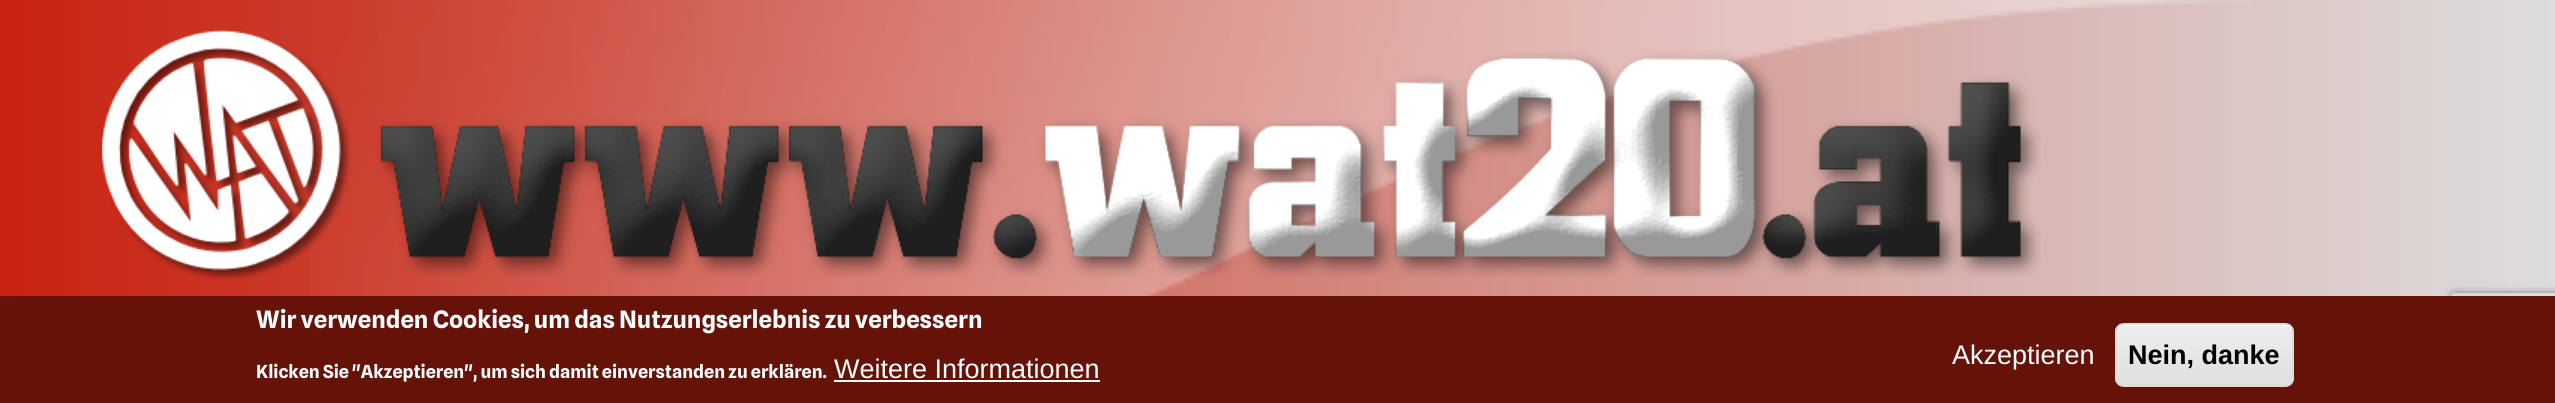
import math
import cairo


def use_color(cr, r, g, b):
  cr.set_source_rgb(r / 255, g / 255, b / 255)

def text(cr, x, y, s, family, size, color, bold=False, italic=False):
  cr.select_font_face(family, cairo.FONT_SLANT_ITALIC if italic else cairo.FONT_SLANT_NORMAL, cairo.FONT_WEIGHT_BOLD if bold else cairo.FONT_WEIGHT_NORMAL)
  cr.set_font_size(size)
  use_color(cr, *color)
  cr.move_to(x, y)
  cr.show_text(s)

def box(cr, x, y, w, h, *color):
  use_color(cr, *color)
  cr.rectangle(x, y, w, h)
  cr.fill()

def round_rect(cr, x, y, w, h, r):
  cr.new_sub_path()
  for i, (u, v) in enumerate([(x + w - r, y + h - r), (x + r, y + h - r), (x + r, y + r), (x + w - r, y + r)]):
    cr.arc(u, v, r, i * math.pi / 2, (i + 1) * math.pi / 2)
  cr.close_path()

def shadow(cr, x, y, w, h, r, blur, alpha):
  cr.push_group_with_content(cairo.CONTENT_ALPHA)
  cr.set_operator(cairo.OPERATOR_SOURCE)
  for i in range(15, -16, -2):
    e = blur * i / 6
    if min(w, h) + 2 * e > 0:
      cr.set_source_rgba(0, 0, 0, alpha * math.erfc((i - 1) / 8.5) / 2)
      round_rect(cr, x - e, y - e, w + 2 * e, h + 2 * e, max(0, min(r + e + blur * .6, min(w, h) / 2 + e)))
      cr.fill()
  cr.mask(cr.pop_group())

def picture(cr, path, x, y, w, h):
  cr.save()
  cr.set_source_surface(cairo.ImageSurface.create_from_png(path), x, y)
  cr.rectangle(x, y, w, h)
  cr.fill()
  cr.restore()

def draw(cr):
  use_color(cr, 255, 255, 255)
  cr.paint()
  gradient = cairo.LinearGradient(0, 152, 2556, 152)
  gradient.add_color_stop_rgba(0, 0.788, 0.137, 0.067, 1)
  gradient.add_color_stop_rgba(1, 0.867, 0.867, 0.867, 1)
  cr.set_source(gradient)
  cr.rectangle(0, 0, 2555, 296)
  cr.fill()
  picture(cr, "img_01.png", 309, 0, 1942, 296)
  picture(cr, "img_02.png", 102, 30, 1939, 250)
  cr.save()
  cr.set_fill_rule(cairo.FILL_RULE_EVEN_ODD)
  cr.new_path()
  cr.move_to(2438, 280)
  cr.line_to(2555, 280)
  cr.line_to(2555, 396)
  cr.line_to(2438, 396)
  cr.close_path()
  cr.move_to(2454, 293)
  cr.line_to(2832, 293)
  cr.curve_to(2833.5, 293, 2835, 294.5, 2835, 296)
  cr.line_to(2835, 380)
  cr.curve_to(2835, 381.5, 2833.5, 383, 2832, 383)
  cr.line_to(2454, 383)
  cr.curve_to(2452.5, 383, 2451, 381.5, 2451, 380)
  cr.line_to(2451, 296)
  cr.curve_to(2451, 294.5, 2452.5, 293, 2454, 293)
  cr.close_path()
  cr.clip()
  use_color(cr, 128, 128, 128)
  shadow(cr, 2451, 293, 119, 90, 3, 4, 1)
  cr.restore()
  box(cr, 0, 296, 2555, 107, 101, 18, 9)
  box(cr, 834, 380, 266, 2, 255, 255, 255)
  cr.save()
  round_rect(cr, 2115, 323, 179, 64, 9)
  cr.clip()
  gradient = cairo.LinearGradient(2204, 324, 2204, 386)
  gradient.add_color_stop_rgba(0.05, 0.929, 0.929, 0.929, 1)
  gradient.add_color_stop_rgba(1, 0.875, 0.875, 0.875, 1)
  cr.set_source(gradient)
  cr.rectangle(2115, 324, 179, 62)
  cr.fill()
  cr.restore()
  cr.new_path()
  cr.move_to(2124, 326)
  cr.line_to(2284, 326)
  cr.curve_to(2289, 326, 2292, 329, 2292, 333)
  cr.line_to(2292, 332)
  cr.curve_to(2292, 328, 2288, 324, 2284, 324)
  cr.line_to(2125, 324)
  cr.curve_to(2122, 324, 2119, 326, 2118, 329)
  cr.curve_to(2119, 327, 2122, 326, 2124, 326)
  cr.close_path()
  cr.fill()
  round_rect(cr, 2116, 324, 177, 62, 8)
  use_color(cr, 220, 220, 220)
  cr.stroke()
  text(cr, 256, 328, "Wir verwenden Cookies, um das Nutzungserlebnis zu verbessern", "Spline Sans", 24, (255, 255, 255), bold=True)
  text(cr, 256, 378, "Klicken Sie \"Akzeptieren\", um sich damit einverstanden zu erklären.", "Spline Sans", 18, (255, 255, 255), bold=True)
  text(cr, 834, 378, "Weitere Informationen", "Liberation Sans", 27, (255, 255, 255))
  text(cr, 1952, 364, "Akzeptieren", "Liberation Sans", 27, (255, 255, 255))
  text(cr, 2128, 364, "Nein, danke", "Liberation Sans", 27, (0, 0, 0), bold=True)


surface = cairo.ImageSurface(cairo.FORMAT_RGB24, 2555, 403)
cr = cairo.Context(surface)
options = cairo.FontOptions()
options.set_hint_metrics(cairo.HINT_METRICS_OFF)
options.set_hint_style(cairo.HINT_STYLE_NONE)
cr.set_font_options(options)
cr.set_miter_limit(4)
draw(cr)
surface.write_to_png("out.png")
